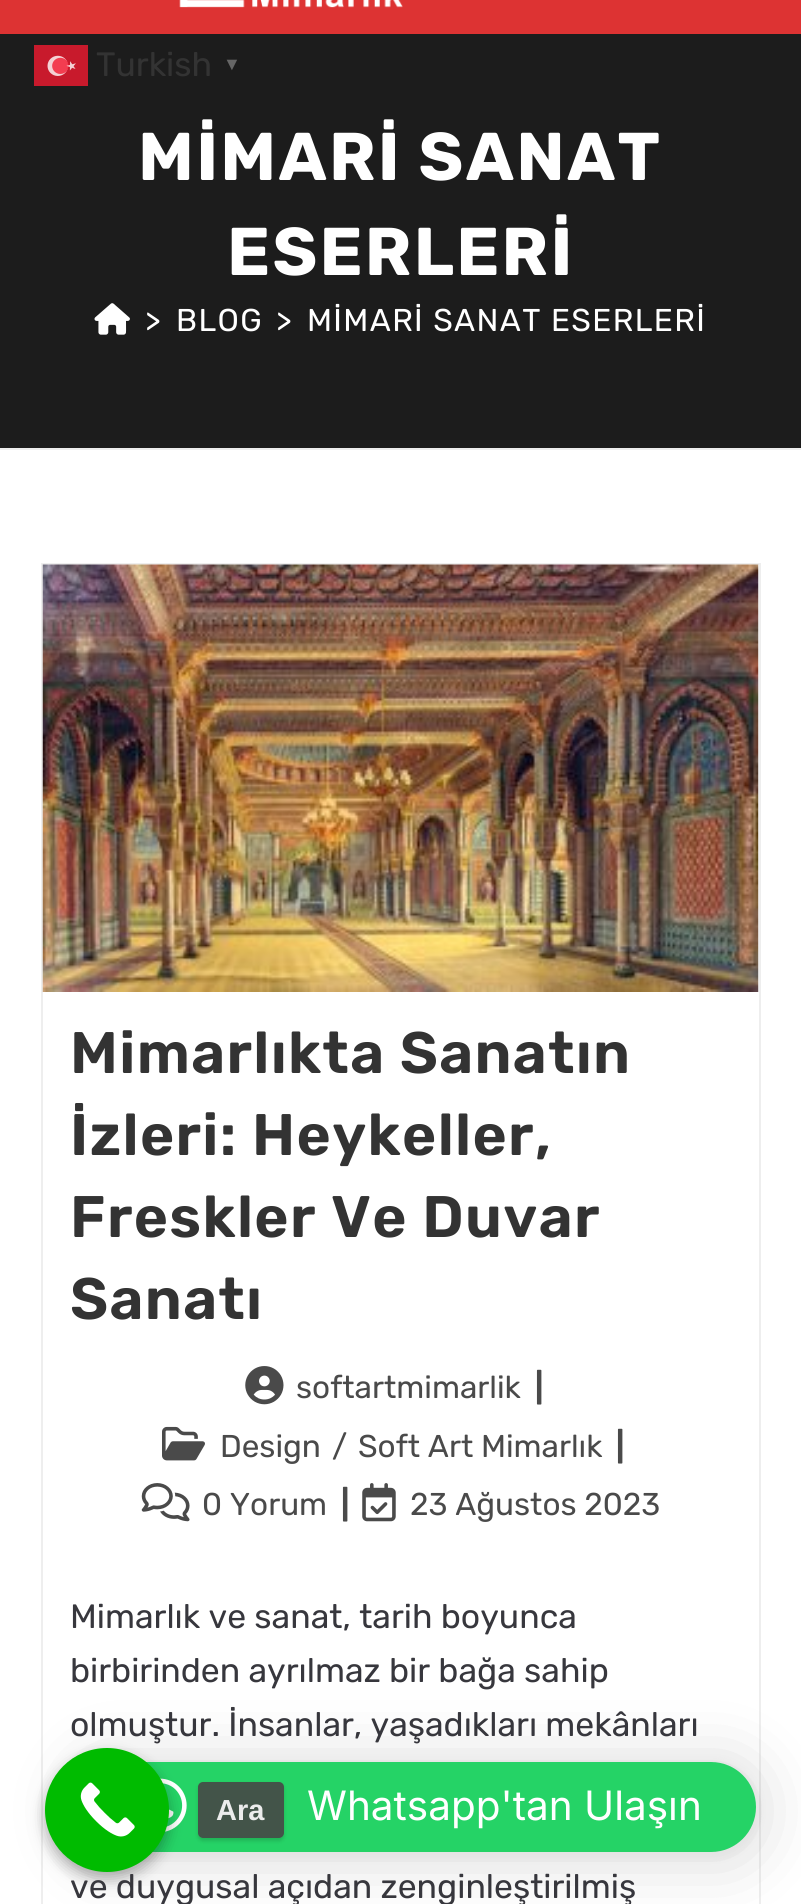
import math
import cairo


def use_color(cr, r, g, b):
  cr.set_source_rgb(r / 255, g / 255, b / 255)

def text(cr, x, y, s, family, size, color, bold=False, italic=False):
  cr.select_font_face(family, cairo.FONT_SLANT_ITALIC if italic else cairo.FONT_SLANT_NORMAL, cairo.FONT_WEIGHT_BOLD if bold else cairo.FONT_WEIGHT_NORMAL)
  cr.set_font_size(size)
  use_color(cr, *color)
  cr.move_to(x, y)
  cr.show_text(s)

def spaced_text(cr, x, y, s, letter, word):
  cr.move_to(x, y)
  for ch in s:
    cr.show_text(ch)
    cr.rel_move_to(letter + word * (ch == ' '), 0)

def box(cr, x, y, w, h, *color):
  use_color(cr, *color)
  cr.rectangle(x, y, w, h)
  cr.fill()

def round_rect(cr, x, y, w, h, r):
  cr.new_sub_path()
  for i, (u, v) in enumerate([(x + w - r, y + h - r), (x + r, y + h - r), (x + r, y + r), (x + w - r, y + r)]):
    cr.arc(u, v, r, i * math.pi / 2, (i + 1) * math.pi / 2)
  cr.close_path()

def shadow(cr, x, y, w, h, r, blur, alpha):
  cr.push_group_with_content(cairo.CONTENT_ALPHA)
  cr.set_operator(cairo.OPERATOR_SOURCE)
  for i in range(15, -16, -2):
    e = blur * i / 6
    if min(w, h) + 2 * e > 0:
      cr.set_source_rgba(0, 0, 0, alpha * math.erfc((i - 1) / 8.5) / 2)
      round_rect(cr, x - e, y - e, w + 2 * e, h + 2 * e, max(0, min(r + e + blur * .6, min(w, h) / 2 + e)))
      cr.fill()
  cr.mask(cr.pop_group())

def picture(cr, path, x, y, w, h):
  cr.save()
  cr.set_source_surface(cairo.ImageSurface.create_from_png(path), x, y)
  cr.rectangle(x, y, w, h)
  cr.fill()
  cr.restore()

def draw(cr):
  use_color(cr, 255, 255, 255)
  cr.paint()
  box(cr, 0, 34, 801, 414, 28, 28, 28)
  picture(cr, "img_01.png", 34, 45, 54, 41)
  box(cr, 0, 0, 801, 34, 221, 51, 51)
  picture(cr, "img_02.png", 179, 0, 224, 8)
  box(cr, 0, 448, 801, 2, 238, 238, 238)
  picture(cr, "img_03.png", 94, 303, 36, 32)
  cr.rectangle(42, 564, 718, 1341)
  cr.stroke()
  picture(cr, "img_04.png", 42, 564, 717, 428)
  picture(cr, "img_05.png", 245, 1366, 39, 39)
  picture(cr, "img_06.png", 162, 1426, 43, 35)
  picture(cr, "img_07.png", 141, 1483, 49, 39)
  picture(cr, "img_08.png", 362, 1483, 34, 39)
  use_color(cr, 0, 0, 0)
  shadow(cr, 79, 1766, 677, 90, 45, 36, 0.16)
  shadow(cr, 79, 1764, 677, 90, 45, 7, 0.06)
  use_color(cr, 37, 211, 102)
  round_rect(cr, 79, 1762, 677, 90, 45)
  cr.fill()
  picture(cr, "img_10.png", 160, 1778, 27, 54)
  use_color(cr, 0, 0, 0)
  shadow(cr, 45, 1755, 124, 124, 62, 7, 0.3)
  use_color(cr, 0, 187, 0)
  cr.arc(107, 1810, 62, 0, 2 * math.pi)
  cr.fill()
  picture(cr, "img_09.png", 80, 1782, 55, 55)
  cr.save()
  cr.set_fill_rule(cairo.FILL_RULE_EVEN_ODD)
  cr.new_path()
  cr.move_to(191, 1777)
  cr.line_to(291, 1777)
  cr.line_to(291, 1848)
  cr.line_to(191, 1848)
  cr.close_path()
  cr.move_to(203, 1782)
  cr.line_to(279, 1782)
  cr.curve_to(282, 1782, 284, 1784, 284, 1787)
  cr.line_to(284, 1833)
  cr.curve_to(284, 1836, 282, 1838, 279, 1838)
  cr.line_to(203, 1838)
  cr.curve_to(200, 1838, 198, 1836, 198, 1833)
  cr.line_to(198, 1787)
  cr.curve_to(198, 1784, 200, 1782, 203, 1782)
  cr.close_path()
  cr.clip()
  use_color(cr, 0, 0, 0)
  shadow(cr, 198, 1784, 86, 57, 5, 2, 0.15)
  cr.restore()
  cr.set_source_rgba(0.275, 0.275, 0.275, 0.9)
  round_rect(cr, 198, 1782, 86, 56, 5)
  cr.fill()
  text(cr, 96, 76, "Turkish", "Rubik", 33.75, (51, 51, 51))
  text(cr, 223, 70, "▼", "Liberation Serif", 18, (102, 102, 102), bold=True)
  cr.select_font_face("Rubik", cairo.FONT_SLANT_NORMAL, cairo.FONT_WEIGHT_BOLD)
  cr.set_font_size(67.5)
  use_color(cr, 255, 255, 255)
  spaced_text(cr, 138, 180, "MİMARİ SANAT", 2.25, 0)
  spaced_text(cr, 227, 275, "ESERLERİ", 2.25, 0)
  cr.select_font_face("Rubik")
  cr.set_font_size(31.5)
  spaced_text(cr, 145, 331, ">", 1.35, 0)
  spaced_text(cr, 176, 331, "BLOG", 1.35, 0)
  spaced_text(cr, 276, 331, ">", 1.35, 0)
  spaced_text(cr, 307, 331, "MİMARİ SANAT ESERLERİ", 1.35, 0)
  cr.select_font_face("Rubik SemiBold")
  cr.set_font_size(58.5)
  use_color(cr, 51, 51, 51)
  spaced_text(cr, 70, 1073, "Mimarlıkta Sanatın", 1.35, 0)
  spaced_text(cr, 70, 1155, "İzleri: Heykeller,", 1.35, 0)
  spaced_text(cr, 70, 1237, "Freskler Ve Duvar", 1.35, 0)
  spaced_text(cr, 70, 1319, "Sanatı", 1.35, 0)
  text(cr, 296, 1398, "softartmimarlik", "Rubik", 31.5, (74, 74, 74))
  text(cr, 535, 1398, "|", "Rubik", 31.5, (74, 74, 74), bold=True)
  text(cr, 220, 1457, "Design", "Rubik", 31.5, (74, 74, 74))
  text(cr, 332, 1457, "/", "Rubik", 31.5, (74, 74, 74))
  text(cr, 358, 1457, "Soft Art Mimarlık", "Rubik", 31.5, (74, 74, 74))
  text(cr, 616, 1457, "|", "Rubik", 31.5, (74, 74, 74), bold=True)
  text(cr, 202, 1515, "0 Yorum", "Rubik", 31.5, (74, 74, 74))
  text(cr, 341, 1515, "|", "Rubik", 31.5, (74, 74, 74), bold=True)
  text(cr, 410, 1515, "23 Ağustos 2023", "Rubik", 31.5, (74, 74, 74))
  text(cr, 70, 1628, "Mimarlık ve sanat, tarih boyunca", "Rubik", 33.75, (55, 55, 61))
  text(cr, 70, 1682, "birbirinden ayrılmaz bir bağa sahip", "Rubik", 33.75, (55, 55, 61))
  text(cr, 70, 1736, "olmuştur. İnsanlar, yaşadıkları mekânları", "Rubik", 33.75, (55, 55, 61))
  text(cr, 70, 1898, "ve duygusal açıdan zenginleştirilmiş", "Rubik", 33.75, (55, 55, 61))
  text(cr, 216, 1820, "Ara", "Liberation Sans", 29, (236, 236, 236), bold=True)
  text(cr, 307, 1820, "Whatsapp'tan Ulaşın", "Inter", 40.5, (255, 255, 255))


surface = cairo.ImageSurface(cairo.FORMAT_RGB24, 801, 1904)
cr = cairo.Context(surface)
options = cairo.FontOptions()
options.set_hint_metrics(cairo.HINT_METRICS_OFF)
options.set_hint_style(cairo.HINT_STYLE_NONE)
cr.set_font_options(options)
cr.set_miter_limit(4)
draw(cr)
surface.write_to_png("out.png")
